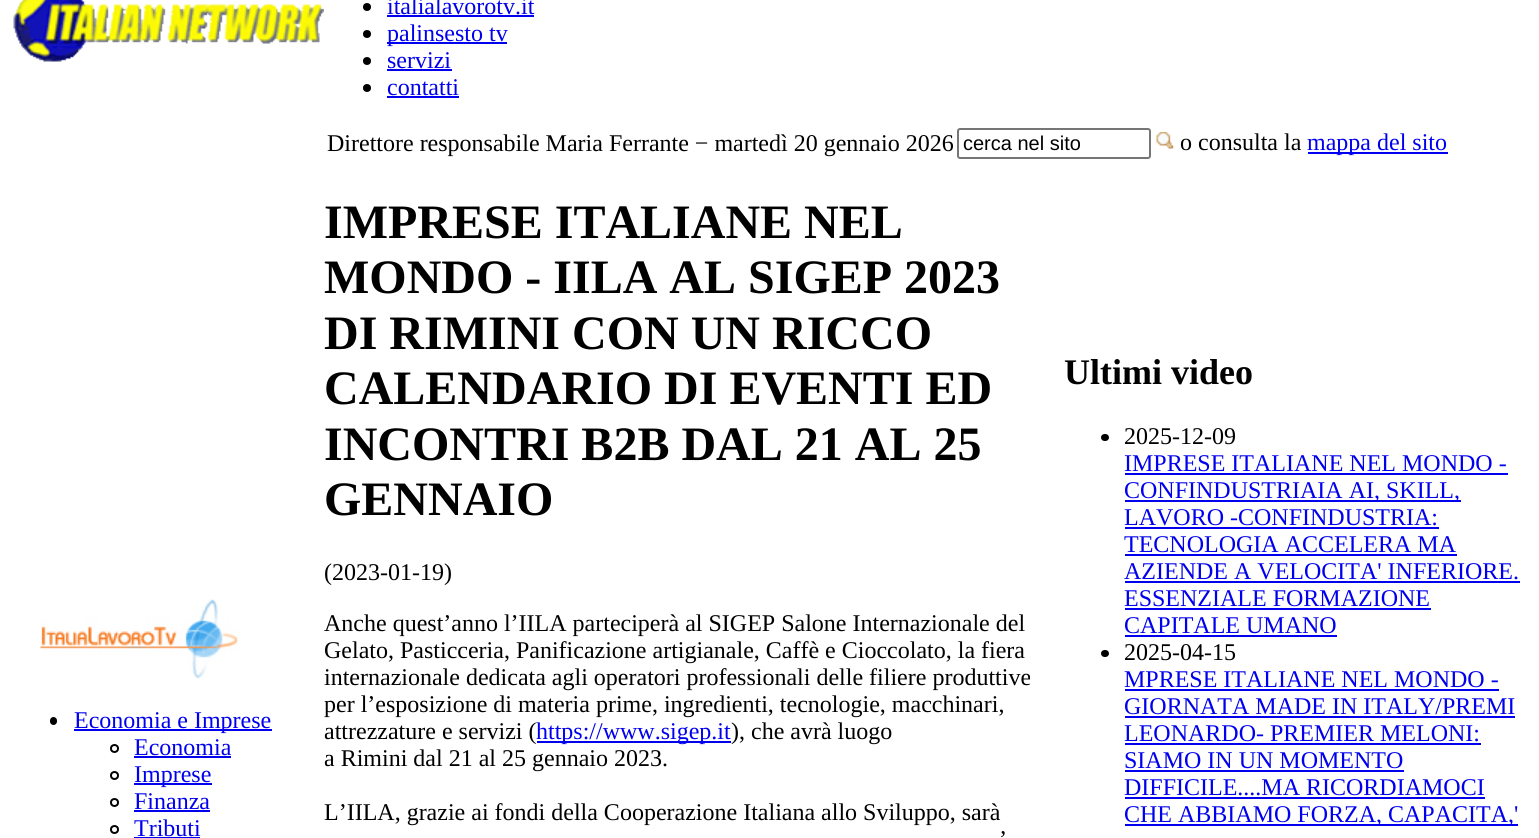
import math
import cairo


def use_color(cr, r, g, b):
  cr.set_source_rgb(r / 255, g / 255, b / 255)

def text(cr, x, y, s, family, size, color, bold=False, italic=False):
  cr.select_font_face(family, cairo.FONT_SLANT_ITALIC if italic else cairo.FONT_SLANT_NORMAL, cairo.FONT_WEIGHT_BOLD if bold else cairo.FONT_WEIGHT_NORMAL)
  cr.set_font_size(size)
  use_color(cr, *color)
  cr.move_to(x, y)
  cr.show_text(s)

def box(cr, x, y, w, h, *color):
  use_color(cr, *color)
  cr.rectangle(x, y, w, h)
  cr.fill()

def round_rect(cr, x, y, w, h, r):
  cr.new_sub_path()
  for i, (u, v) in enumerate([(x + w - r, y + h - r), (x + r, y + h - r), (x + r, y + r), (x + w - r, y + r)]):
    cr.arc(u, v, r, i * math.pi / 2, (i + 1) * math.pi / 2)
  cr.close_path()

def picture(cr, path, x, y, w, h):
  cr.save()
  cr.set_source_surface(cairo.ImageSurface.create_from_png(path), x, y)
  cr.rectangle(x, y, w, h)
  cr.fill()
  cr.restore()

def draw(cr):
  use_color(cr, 255, 255, 255)
  cr.paint()
  picture(cr, "img_01.png", 13, 0, 311, 62)
  use_color(cr, 0, 0, 0)
  cr.arc(367, 7, 4, 0, 2 * math.pi)
  cr.fill()
  box(cr, 387, 15, 147, 2, 0, 0, 238)
  use_color(cr, 0, 0, 0)
  cr.arc(367, 34, 4, 0, 2 * math.pi)
  cr.fill()
  box(cr, 387, 42, 120, 2, 0, 0, 238)
  use_color(cr, 0, 0, 0)
  cr.arc(367, 61, 4, 0, 2 * math.pi)
  cr.fill()
  box(cr, 387, 69, 65, 2, 0, 0, 238)
  use_color(cr, 0, 0, 0)
  cr.arc(367, 88, 4, 0, 2 * math.pi)
  cr.fill()
  box(cr, 387, 96, 72, 2, 0, 0, 238)
  round_rect(cr, 958, 129, 192, 29, 2)
  use_color(cr, 118, 118, 118)
  cr.stroke()
  picture(cr, "img_02.png", 1156, 132, 18, 17)
  box(cr, 1308, 152, 140, 2, 0, 0, 238)
  picture(cr, "img_03.png", 40, 599, 198, 80)
  use_color(cr, 0, 0, 0)
  round_rect(cr, 50, 717, 7, 8, 3.5)
  cr.fill()
  box(cr, 74, 729, 198, 2, 0, 0, 238)
  cr.arc(114.5, 748.5, 3.5, 0, 2 * math.pi)
  use_color(cr, 0, 0, 0)
  cr.stroke()
  box(cr, 134, 756, 97, 2, 0, 0, 238)
  cr.arc(114.5, 775.5, 3.5, 0, 2 * math.pi)
  use_color(cr, 0, 0, 0)
  cr.stroke()
  box(cr, 134, 783, 78, 2, 0, 0, 238)
  cr.arc(114.5, 802.5, 3.5, 0, 2 * math.pi)
  use_color(cr, 0, 0, 0)
  cr.stroke()
  box(cr, 134, 810, 76, 2, 0, 0, 238)
  cr.arc(114.5, 829.5, 3.5, 0, 2 * math.pi)
  use_color(cr, 0, 0, 0)
  cr.stroke()
  box(cr, 134, 837, 66, 1, 0, 0, 238)
  box(cr, 537, 741, 194, 2, 0, 0, 238)
  use_color(cr, 0, 0, 0)
  round_rect(cr, 1101, 434, 8, 7, 3.5)
  cr.fill()
  box(cr, 1125, 473, 383, 2, 0, 0, 238)
  box(cr, 1125, 500, 336, 2, 0, 0, 238)
  box(cr, 1125, 527, 314, 2, 0, 0, 238)
  box(cr, 1125, 554, 332, 2, 0, 0, 238)
  box(cr, 1125, 581, 395, 2, 0, 0, 238)
  box(cr, 1125, 608, 306, 2, 0, 0, 238)
  box(cr, 1125, 635, 212, 2, 0, 0, 238)
  use_color(cr, 0, 0, 0)
  round_rect(cr, 1101, 650, 8, 7, 3.5)
  cr.fill()
  box(cr, 1125, 689, 374, 2, 0, 0, 238)
  box(cr, 1125, 716, 390, 2, 0, 0, 238)
  box(cr, 1125, 743, 356, 2, 0, 0, 238)
  box(cr, 1125, 770, 279, 2, 0, 0, 238)
  box(cr, 1125, 797, 360, 2, 0, 0, 238)
  box(cr, 1125, 824, 393, 2, 0, 0, 238)
  text(cr, 387, 14, "italialavorotv.it", "Liberation Serif", 24, (0, 0, 238))
  text(cr, 387, 41, "palinsesto tv", "Liberation Serif", 24, (0, 0, 238))
  text(cr, 387, 68, "servizi", "Liberation Serif", 24, (0, 0, 238))
  text(cr, 387, 95, "contatti", "Liberation Serif", 24, (0, 0, 238))
  text(cr, 327, 151, "Direttore responsabile Maria Ferrante − martedì 20 gennaio 2026", "Liberation Serif", 24, (0, 0, 0))
  text(cr, 963, 150, "cerca nel sito", "Liberation Sans", 20, (0, 0, 0))
  text(cr, 1180, 150, "o consulta la", "Liberation Serif", 24, (0, 0, 0))
  text(cr, 1307, 150, "mappa del sito", "Liberation Serif", 24, (0, 0, 238))
  text(cr, 74, 728, "Economia e Imprese", "Liberation Serif", 24, (0, 0, 238))
  text(cr, 134, 755, "Economia", "Liberation Serif", 24, (0, 0, 238))
  text(cr, 134, 782, "Imprese", "Liberation Serif", 24, (0, 0, 238))
  text(cr, 134, 809, "Finanza", "Liberation Serif", 24, (0, 0, 238))
  text(cr, 134, 836, "Tributi", "Liberation Serif", 24, (0, 0, 238))
  text(cr, 324, 238, "IMPRESE ITALIANE NEL", "Liberation Serif", 48, (0, 0, 0), bold=True)
  text(cr, 324, 293, "MONDO - IILA AL SIGEP 2023", "Liberation Serif", 48, (0, 0, 0), bold=True)
  text(cr, 324, 349, "DI RIMINI CON UN RICCO", "Liberation Serif", 48, (0, 0, 0), bold=True)
  text(cr, 324, 404, "CALENDARIO DI EVENTI ED", "Liberation Serif", 48, (0, 0, 0), bold=True)
  text(cr, 324, 460, "INCONTRI B2B DAL 21 AL 25", "Liberation Serif", 48, (0, 0, 0), bold=True)
  text(cr, 324, 515, "GENNAIO", "Liberation Serif", 48, (0, 0, 0), bold=True)
  text(cr, 324, 580, "(2023-01-19)", "Liberation Serif", 24, (0, 0, 0))
  text(cr, 324, 631, "Anche quest’anno l’IILA parteciperà al SIGEP Salone Internazionale del", "Liberation Serif", 24, (0, 0, 0))
  text(cr, 324, 658, "Gelato, Pasticceria, Panificazione artigianale, Caffè e Cioccolato, la fiera", "Liberation Serif", 24, (0, 0, 0))
  text(cr, 324, 685, "internazionale dedicata agli operatori professionali delle filiere produttive", "Liberation Serif", 24, (0, 0, 0))
  text(cr, 324, 712, "per l’esposizione di materia prime, ingredienti, tecnologie, macchinari,", "Liberation Serif", 24, (0, 0, 0))
  text(cr, 324, 739, "attrezzature e servizi (", "Liberation Serif", 24, (0, 0, 0))
  text(cr, 536, 739, "https://www.sigep.it", "Liberation Serif", 24, (0, 0, 238))
  text(cr, 731, 739, "), che avrà luogo", "Liberation Serif", 24, (0, 0, 0))
  text(cr, 324, 766, "a Rimini dal 21 al 25 gennaio 2023.", "Liberation Serif", 24, (0, 0, 0))
  text(cr, 324, 820, "L’IILA, grazie ai fondi della Cooperazione Italiana allo Sviluppo, sarà", "Liberation Serif", 24, (0, 0, 0))
  text(cr, 999, 847, "’", "Liberation Serif", 24, (0, 0, 0))
  text(cr, 1064, 384, "Ultimi video", "Liberation Serif", 36, (0, 0, 0), bold=True)
  text(cr, 1124, 444, "2025-12-09", "Liberation Serif", 24, (0, 0, 0))
  text(cr, 1124, 471, "IMPRESE ITALIANE NEL MONDO -", "Liberation Serif", 24, (0, 0, 238))
  text(cr, 1124, 498, "CONFINDUSTRIAIA AI, SKILL,", "Liberation Serif", 24, (0, 0, 238))
  text(cr, 1124, 525, "LAVORO -CONFINDUSTRIA:", "Liberation Serif", 24, (0, 0, 238))
  text(cr, 1124, 552, "TECNOLOGIA ACCELERA MA", "Liberation Serif", 24, (0, 0, 238))
  text(cr, 1124, 579, "AZIENDE A VELOCITA' INFERIORE.", "Liberation Serif", 24, (0, 0, 238))
  text(cr, 1124, 606, "ESSENZIALE FORMAZIONE", "Liberation Serif", 24, (0, 0, 238))
  text(cr, 1124, 633, "CAPITALE UMANO", "Liberation Serif", 24, (0, 0, 238))
  text(cr, 1124, 660, "2025-04-15", "Liberation Serif", 24, (0, 0, 0))
  text(cr, 1124, 687, "MPRESE ITALIANE NEL MONDO -", "Liberation Serif", 24, (0, 0, 238))
  text(cr, 1124, 714, "GIORNATA MADE IN ITALY/PREMI", "Liberation Serif", 24, (0, 0, 238))
  text(cr, 1124, 741, "LEONARDO- PREMIER MELONI:", "Liberation Serif", 24, (0, 0, 238))
  text(cr, 1124, 768, "SIAMO IN UN MOMENTO", "Liberation Serif", 24, (0, 0, 238))
  text(cr, 1124, 795, "DIFFICILE....MA RICORDIAMOCI", "Liberation Serif", 24, (0, 0, 238))
  text(cr, 1124, 822, "CHE ABBIAMO FORZA, CAPACITA,'", "Liberation Serif", 24, (0, 0, 238))


surface = cairo.ImageSurface(cairo.FORMAT_RGB24, 1539, 838)
cr = cairo.Context(surface)
options = cairo.FontOptions()
options.set_hint_metrics(cairo.HINT_METRICS_OFF)
options.set_hint_style(cairo.HINT_STYLE_NONE)
cr.set_font_options(options)
cr.set_miter_limit(4)
draw(cr)
surface.write_to_png("out.png")
